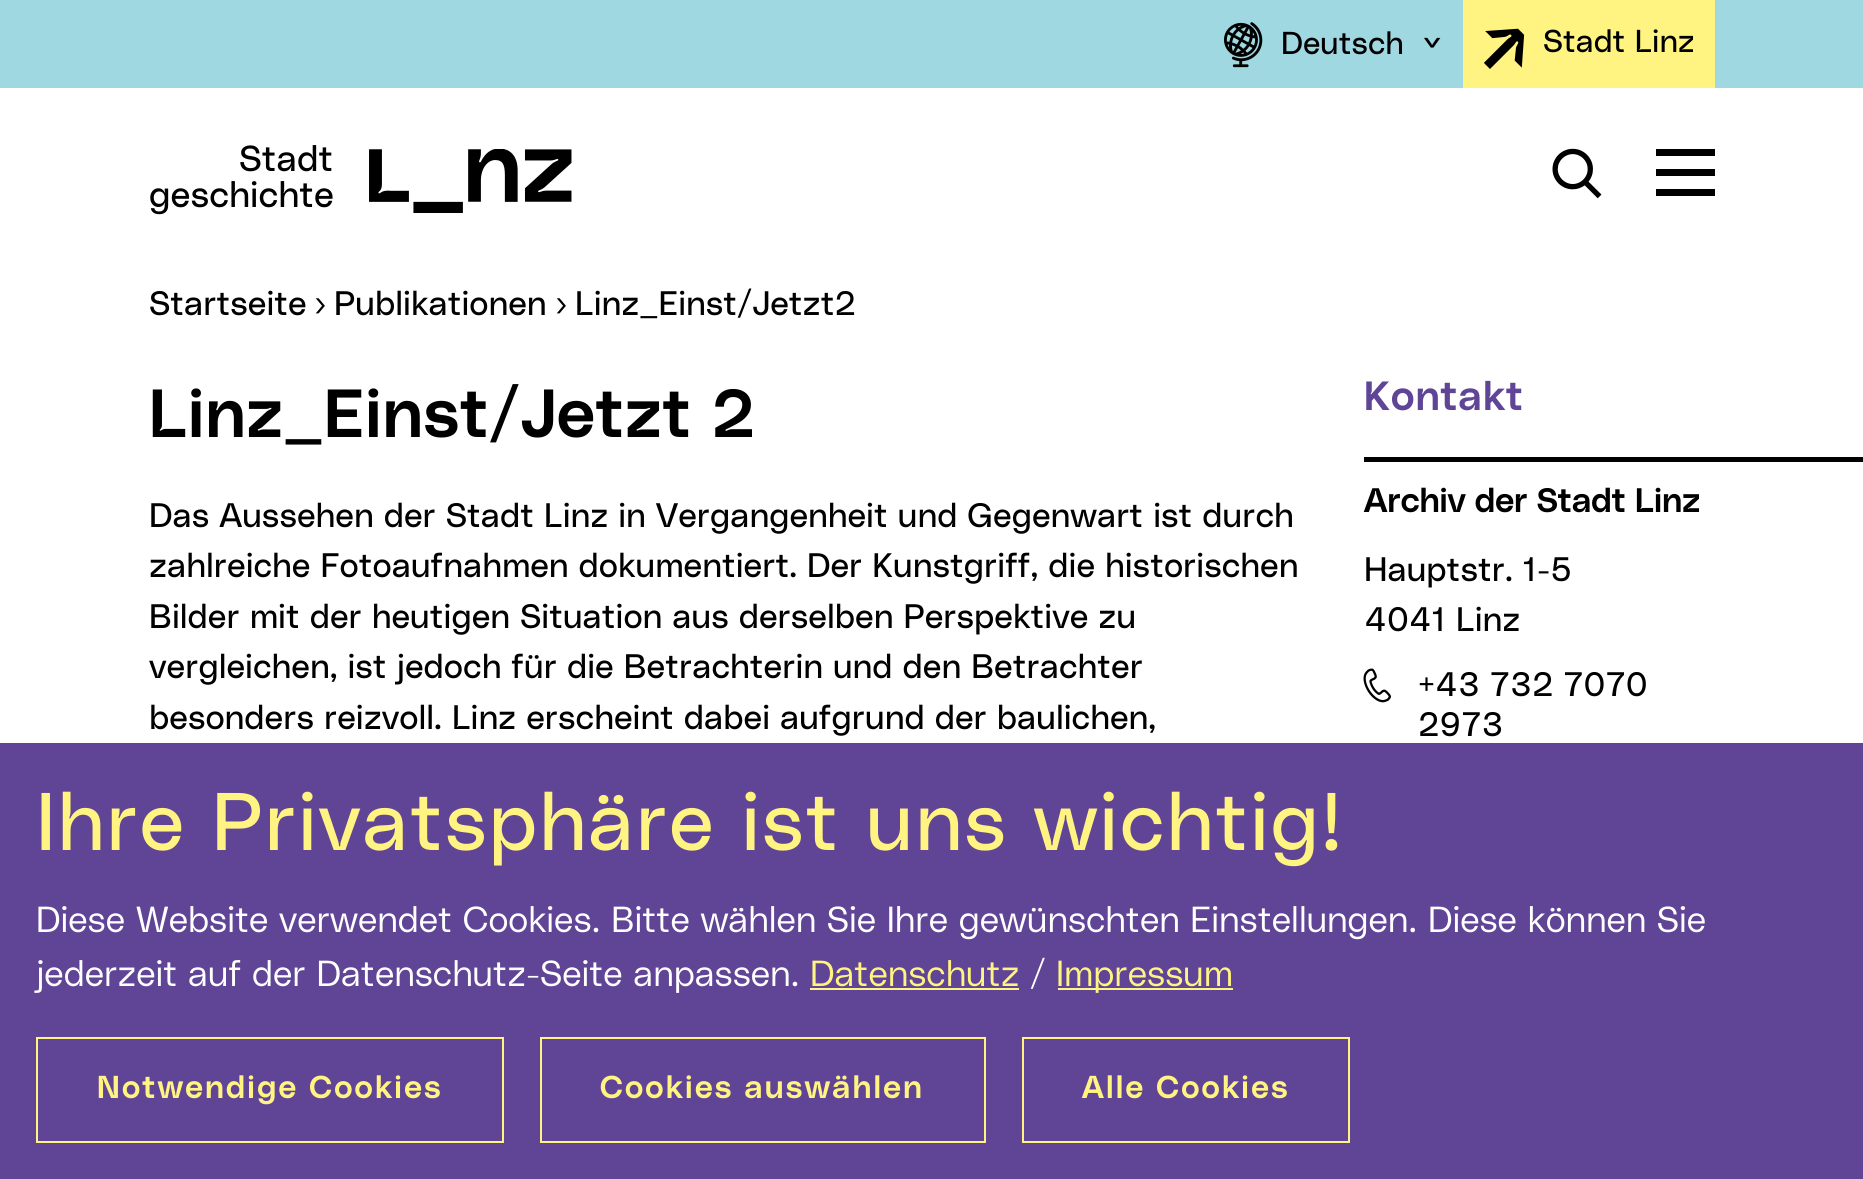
import math
import cairo


def use_color(cr, r, g, b):
  cr.set_source_rgb(r / 255, g / 255, b / 255)

def text(cr, x, y, s, family, size, color, bold=False, italic=False):
  cr.select_font_face(family, cairo.FONT_SLANT_ITALIC if italic else cairo.FONT_SLANT_NORMAL, cairo.FONT_WEIGHT_BOLD if bold else cairo.FONT_WEIGHT_NORMAL)
  cr.set_font_size(size)
  use_color(cr, *color)
  cr.move_to(x, y)
  cr.show_text(s)

def spaced_text(cr, x, y, s, letter, word):
  cr.move_to(x, y)
  for ch in s:
    cr.show_text(ch)
    cr.rel_move_to(letter + word * (ch == ' '), 0)

def box(cr, x, y, w, h, *color):
  use_color(cr, *color)
  cr.rectangle(x, y, w, h)
  cr.fill()

def picture(cr, path, x, y, w, h):
  cr.save()
  cr.set_source_surface(cairo.ImageSurface.create_from_png(path), x, y)
  cr.rectangle(x, y, w, h)
  cr.fill()
  cr.restore()

def draw(cr):
  use_color(cr, 255, 255, 255)
  cr.paint()
  box(cr, 0, 0, 1863, 88, 159, 216, 225)
  picture(cr, "img_01.png", 1224, 22, 39, 46)
  picture(cr, "img_02.png", 1424, 37, 17, 11)
  box(cr, 1463, 0, 252, 88, 255, 243, 129)
  picture(cr, "img_03.png", 1483, 28, 42, 41)
  picture(cr, "img_04.png", 369, 149, 203, 64)
  picture(cr, "img_05.png", 1552, 148, 50, 51)
  box(cr, 1656, 149, 59, 7, 0, 0, 0)
  box(cr, 1656, 169, 59, 7, 0, 0, 0)
  box(cr, 1656, 189, 59, 7, 0, 0, 0)
  box(cr, 1364, 457, 499, 5, 0, 0, 0)
  picture(cr, "img_06.png", 1363, 668, 28, 35)
  box(cr, 0, 743, 1863, 436, 96, 69, 150)
  box(cr, 810, 988, 209, 2, 255, 243, 129)
  box(cr, 1058, 988, 175, 2, 255, 243, 129)
  cr.rectangle(37, 1038, 466, 104)
  cr.stroke()
  cr.rectangle(541, 1038, 444, 104)
  cr.stroke()
  cr.rectangle(1023, 1038, 326, 104)
  cr.stroke()
  text(cr, 1281, 54, "Deutsch", "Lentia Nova", 31.5, (0, 0, 0))
  text(cr, 1543, 52, "Stadt Linz", "Lentia Nova", 31.5, (0, 0, 0))
  text(cr, 239, 171, "Stadt", "Lentia Nova", 36, (0, 0, 0))
  text(cr, 149, 207, "geschichte", "Lentia Nova", 36, (0, 0, 0))
  text(cr, 149, 315, "Startseite", "Lentia Nova", 33.75, (0, 0, 0))
  text(cr, 314, 315, "›", "Lentia Nova", 33.75, (0, 0, 0))
  text(cr, 334, 315, "Publikationen", "Lentia Nova", 33.75, (0, 0, 0))
  text(cr, 555, 315, "›", "Lentia Nova", 33.75, (0, 0, 0))
  text(cr, 575, 315, "Linz_Einst/Jetzt2", "Lentia Nova", 33.75, (0, 0, 0))
  cr.select_font_face("Lentia Nova SemiBold")
  cr.set_font_size(67.5)
  spaced_text(cr, 149, 437, "Linz_Einst/Jetzt 2", 1.1, 0)
  text(cr, 149, 527, "Das Aussehen der Stadt Linz in Vergangenheit und Gegenwart ist durch", "Lentia Nova", 33.75, (0, 0, 0))
  text(cr, 149, 577, "zahlreiche Fotoaufnahmen dokumentiert. Der Kunstgriff, die historischen", "Lentia Nova", 33.75, (0, 0, 0))
  text(cr, 149, 628, "Bilder mit der heutigen Situation aus derselben Perspektive zu", "Lentia Nova", 33.75, (0, 0, 0))
  text(cr, 149, 678, "vergleichen, ist jedoch für die Betrachterin und den Betrachter", "Lentia Nova", 33.75, (0, 0, 0))
  text(cr, 149, 729, "besonders reizvoll. Linz erscheint dabei aufgrund der baulichen,", "Lentia Nova", 33.75, (0, 0, 0))
  cr.select_font_face("Lentia Nova SemiBold")
  cr.set_font_size(40.5)
  use_color(cr, 96, 69, 150)
  spaced_text(cr, 1364, 410, "Kontakt", 1.1, 0)
  text(cr, 1364, 512, "Archiv der Stadt Linz", "Lentia Nova SemiBold", 33.75, (0, 0, 0))
  text(cr, 1364, 581, "Hauptstr. 1-5", "Lentia Nova", 33.75, (0, 0, 0))
  text(cr, 1364, 631, "4041 Linz", "Lentia Nova", 33.75, (0, 0, 0))
  text(cr, 1418, 696, "+43 732 7070", "Lentia Nova", 33.75, (0, 0, 0))
  text(cr, 1418, 736, "2973", "Lentia Nova", 33.75, (0, 0, 0))
  cr.set_font_size(81)
  use_color(cr, 255, 243, 129)
  spaced_text(cr, 36, 850, "Ihre Privatsphäre ist uns wichtig!", 1.7, 0)
  text(cr, 36, 932, "Diese Website verwendet Cookies. Bitte wählen Sie Ihre gewünschten Einstellungen. Diese können Sie", "Lentia Nova Light", 36, (255, 255, 255))
  text(cr, 36, 986, "jederzeit auf der Datenschutz-Seite anpassen.", "Lentia Nova Light", 36, (255, 255, 255))
  text(cr, 810, 986, "Datenschutz", "Lentia Nova Light", 36, (255, 243, 129))
  text(cr, 1030, 986, "/", "Lentia Nova Light", 36, (255, 255, 255))
  text(cr, 1056, 986, "Impressum", "Lentia Nova Light", 36, (255, 243, 129))
  cr.select_font_face("Lentia Nova SemiBold")
  cr.set_font_size(31.5)
  spaced_text(cr, 97, 1098, "Notwendige Cookies", 2.25, 0)
  spaced_text(cr, 600, 1098, "Cookies auswählen", 2.25, 0)
  spaced_text(cr, 1082, 1098, "Alle Cookies", 2.25, 0)


surface = cairo.ImageSurface(cairo.FORMAT_RGB24, 1863, 1179)
cr = cairo.Context(surface)
options = cairo.FontOptions()
options.set_hint_metrics(cairo.HINT_METRICS_OFF)
options.set_hint_style(cairo.HINT_STYLE_NONE)
cr.set_font_options(options)
cr.set_miter_limit(4)
draw(cr)
surface.write_to_png("out.png")
